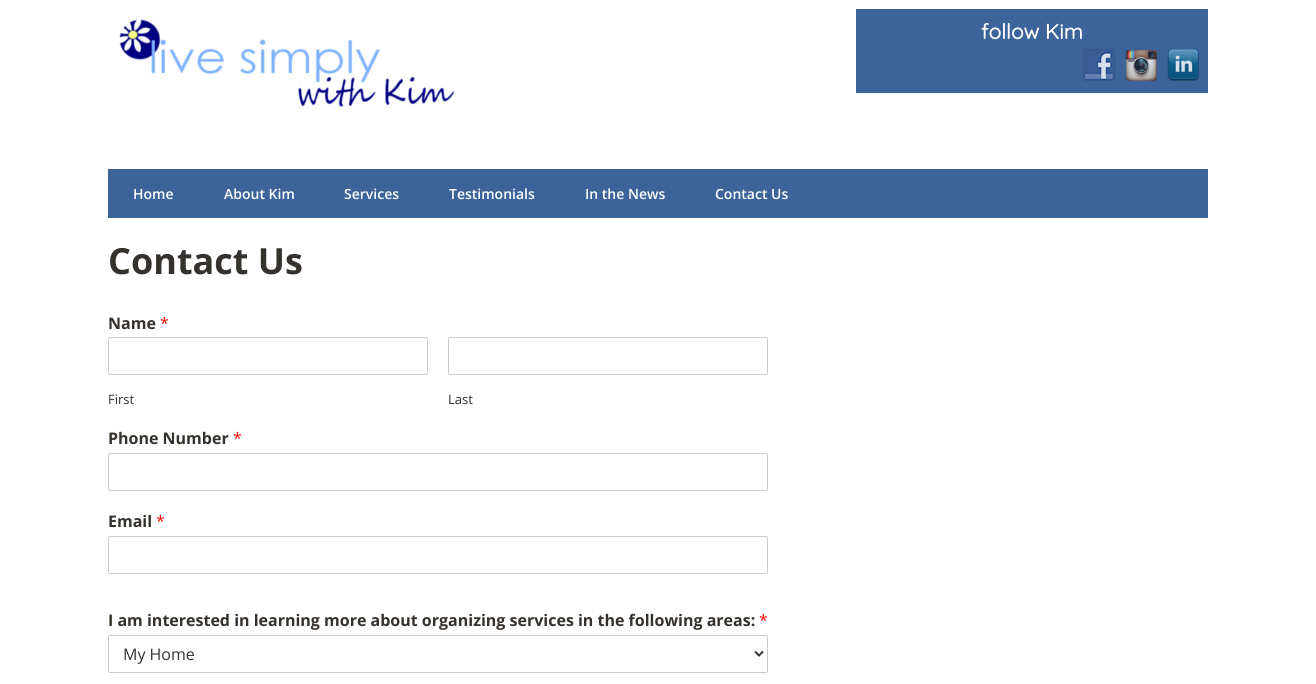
import math
import cairo


def use_color(cr, r, g, b):
  cr.set_source_rgb(r / 255, g / 255, b / 255)

def text(cr, x, y, s, family, size, color, bold=False, italic=False):
  cr.select_font_face(family, cairo.FONT_SLANT_ITALIC if italic else cairo.FONT_SLANT_NORMAL, cairo.FONT_WEIGHT_BOLD if bold else cairo.FONT_WEIGHT_NORMAL)
  cr.set_font_size(size)
  use_color(cr, *color)
  cr.move_to(x, y)
  cr.show_text(s)

def box(cr, x, y, w, h, *color):
  use_color(cr, *color)
  cr.rectangle(x, y, w, h)
  cr.fill()

def round_rect(cr, x, y, w, h, r):
  cr.new_sub_path()
  for i, (u, v) in enumerate([(x + w - r, y + h - r), (x + r, y + h - r), (x + r, y + r), (x + w - r, y + r)]):
    cr.arc(u, v, r, i * math.pi / 2, (i + 1) * math.pi / 2)
  cr.close_path()

def picture(cr, path, x, y, w, h):
  cr.save()
  cr.set_source_surface(cairo.ImageSurface.create_from_png(path), x, y)
  cr.rectangle(x, y, w, h)
  cr.fill()
  cr.restore()

def draw(cr):
  use_color(cr, 255, 255, 255)
  cr.paint()
  picture(cr, "img_01.png", 119, 19, 336, 88)
  box(cr, 856, 9, 352, 84, 60, 99, 154)
  picture(cr, "img_02.png", 1083, 49, 32, 32)
  picture(cr, "img_03.png", 1126, 50, 31, 31)
  picture(cr, "img_04.png", 1167, 49, 32, 32)
  box(cr, 108, 169, 1100, 49, 60, 99, 154)
  round_rect(cr, 108.5, 337.5, 319, 37, 1.5)
  use_color(cr, 204, 204, 204)
  cr.set_line_width(1)
  cr.stroke()
  round_rect(cr, 448.5, 337.5, 319, 37, 1.5)
  cr.stroke()
  round_rect(cr, 108.5, 453.5, 659, 37, 1.5)
  cr.stroke()
  round_rect(cr, 108.5, 536.5, 659, 37, 1.5)
  cr.stroke()
  round_rect(cr, 108.5, 635.5, 659, 37, 1.5)
  cr.stroke()
  cr.new_path()
  cr.move_to(755, 651.5)
  cr.line_to(759, 655.5)
  cr.line_to(763, 651.5)
  use_color(cr, 51, 51, 51)
  cr.set_line_width(2)
  cr.stroke()
  text(cr, 981, 39, "follow Kim", "Quicksand", 21, (255, 255, 255), bold=True)
  text(cr, 133, 199, "Home", "Open Sans SemiBold", 14, (255, 255, 255))
  text(cr, 224, 199, "About Kim", "Open Sans SemiBold", 14, (255, 255, 255))
  text(cr, 344, 199, "Services", "Open Sans SemiBold", 14, (255, 255, 255))
  text(cr, 449, 199, "Testimonials", "Open Sans SemiBold", 14, (255, 255, 255))
  text(cr, 585, 199, "In the News", "Open Sans SemiBold", 14, (255, 255, 255))
  text(cr, 715, 199, "Contact Us", "Open Sans SemiBold", 14, (255, 255, 255))
  text(cr, 108, 274, "Contact Us", "Open Sans", 36, (53, 49, 44), bold=True)
  text(cr, 108, 329, "Name", "Open Sans", 16, (53, 49, 44), bold=True)
  text(cr, 160, 329, "*", "Open Sans", 16, (255, 0, 0))
  text(cr, 108, 404, "First", "Open Sans", 13, (53, 49, 44))
  text(cr, 448, 404, "Last", "Open Sans", 13, (53, 49, 44))
  text(cr, 108, 444, "Phone Number", "Open Sans", 16, (53, 49, 44), bold=True)
  text(cr, 233, 444, "*", "Open Sans", 16, (255, 0, 0))
  text(cr, 108, 527, "Email", "Open Sans", 16, (53, 49, 44), bold=True)
  text(cr, 156, 527, "*", "Open Sans", 16, (255, 0, 0))
  text(cr, 108, 626, "I am interested in learning more about organizing services in the following areas:", "Open Sans", 16, (53, 49, 44), bold=True)
  text(cr, 759, 626, "*", "Open Sans", 16, (255, 0, 0))
  text(cr, 123, 660, "My Home", "Open Sans", 16, (51, 51, 51))


surface = cairo.ImageSurface(cairo.FORMAT_RGB24, 1316, 684)
cr = cairo.Context(surface)
options = cairo.FontOptions()
options.set_hint_metrics(cairo.HINT_METRICS_OFF)
options.set_hint_style(cairo.HINT_STYLE_NONE)
cr.set_font_options(options)
cr.set_miter_limit(4)
draw(cr)
surface.write_to_png("out.png")
